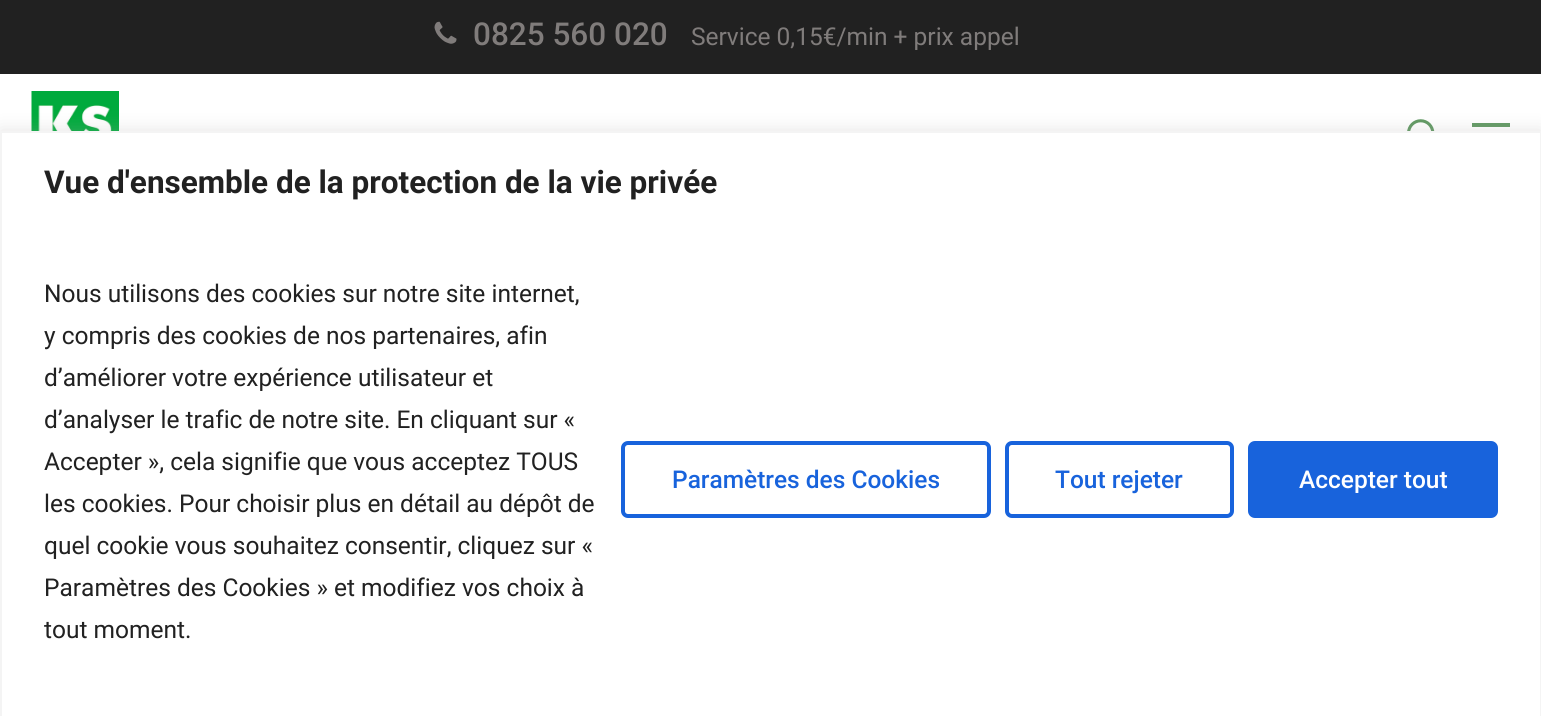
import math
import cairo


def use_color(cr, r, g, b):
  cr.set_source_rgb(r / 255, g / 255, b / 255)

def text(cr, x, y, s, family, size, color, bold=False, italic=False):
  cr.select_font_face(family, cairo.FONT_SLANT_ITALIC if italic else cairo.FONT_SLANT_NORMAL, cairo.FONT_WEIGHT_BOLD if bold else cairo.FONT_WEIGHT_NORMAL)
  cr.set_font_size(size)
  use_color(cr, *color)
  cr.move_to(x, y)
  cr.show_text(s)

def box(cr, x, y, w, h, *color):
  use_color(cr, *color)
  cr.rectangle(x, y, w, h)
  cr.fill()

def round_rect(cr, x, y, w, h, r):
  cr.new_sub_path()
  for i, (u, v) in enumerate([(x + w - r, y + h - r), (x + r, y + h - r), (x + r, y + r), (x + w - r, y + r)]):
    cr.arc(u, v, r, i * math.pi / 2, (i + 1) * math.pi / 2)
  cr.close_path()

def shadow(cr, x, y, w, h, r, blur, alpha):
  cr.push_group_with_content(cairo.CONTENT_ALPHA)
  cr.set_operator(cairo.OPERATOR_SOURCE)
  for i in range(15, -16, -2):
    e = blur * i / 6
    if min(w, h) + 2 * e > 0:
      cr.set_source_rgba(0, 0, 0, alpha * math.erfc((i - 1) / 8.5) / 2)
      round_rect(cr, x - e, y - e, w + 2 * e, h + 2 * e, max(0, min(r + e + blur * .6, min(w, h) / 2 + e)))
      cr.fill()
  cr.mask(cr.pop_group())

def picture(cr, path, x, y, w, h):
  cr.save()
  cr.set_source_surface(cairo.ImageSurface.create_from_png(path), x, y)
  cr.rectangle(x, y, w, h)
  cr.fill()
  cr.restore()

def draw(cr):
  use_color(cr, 255, 255, 255)
  cr.paint()
  box(cr, 0, 0, 1541, 74, 33, 33, 33)
  picture(cr, "img_01.png", 434, 21, 23, 23)
  picture(cr, "img_02.png", 31, 91, 88, 40)
  picture(cr, "img_03.png", 1407, 119, 28, 12)
  box(cr, 1472, 123, 38, 4, 95, 152, 97)
  use_color(cr, 172, 171, 171)
  shadow(cr, 0, 130, 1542, 586, 0, 9, 0.3)
  use_color(cr, 255, 255, 255)
  cr.rectangle(1, 132, 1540, 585)
  cr.fill_preserve()
  use_color(cr, 244, 244, 244)
  cr.stroke()
  round_rect(cr, 623, 443, 366, 73, 5)
  use_color(cr, 24, 99, 220)
  cr.set_line_width(4)
  cr.stroke()
  round_rect(cr, 1007, 443, 225, 73, 5)
  cr.stroke()
  round_rect(cr, 1250, 443, 246, 73, 5)
  cr.fill_preserve()
  cr.stroke()
  text(cr, 473, 45, "0825 560 020", "Roboto Medium", 31.5, (128, 124, 123))
  text(cr, 691, 45, "Service 0,15€/min + prix appel", "Roboto", 24.5, (128, 124, 123))
  text(cr, 44, 193, "Vue d'ensemble de la protection de la vie privée", "Roboto", 31.5, (33, 33, 33), bold=True)
  text(cr, 44, 302, "Nous utilisons des cookies sur notre site internet,", "Roboto", 24.5, (33, 33, 33))
  text(cr, 44, 344, "y compris des cookies de nos partenaires, afin", "Roboto", 24.5, (33, 33, 33))
  text(cr, 44, 386, "d’améliorer votre expérience utilisateur et", "Roboto", 24.5, (33, 33, 33))
  text(cr, 44, 428, "d’analyser le trafic de notre site. En cliquant sur «", "Roboto", 24.5, (33, 33, 33))
  text(cr, 44, 470, "Accepter », cela signifie que vous acceptez TOUS", "Roboto", 24.5, (33, 33, 33))
  text(cr, 44, 512, "les cookies. Pour choisir plus en détail au dépôt de", "Roboto", 24.5, (33, 33, 33))
  text(cr, 44, 554, "quel cookie vous souhaitez consentir, cliquez sur «", "Roboto", 24.5, (33, 33, 33))
  text(cr, 44, 596, "Paramètres des Cookies » et modifiez vos choix à", "Roboto", 24.5, (33, 33, 33))
  text(cr, 44, 638, "tout moment.", "Roboto", 24.5, (33, 33, 33))
  text(cr, 672, 488, "Paramètres des Cookies", "Roboto Medium", 24.5, (24, 99, 220))
  text(cr, 1055, 488, "Tout rejeter", "Roboto Medium", 24.5, (24, 99, 220))
  text(cr, 1299, 488, "Accepter tout", "Roboto Medium", 24.5, (255, 255, 255))


surface = cairo.ImageSurface(cairo.FORMAT_RGB24, 1541, 716)
cr = cairo.Context(surface)
options = cairo.FontOptions()
options.set_hint_metrics(cairo.HINT_METRICS_OFF)
options.set_hint_style(cairo.HINT_STYLE_NONE)
cr.set_font_options(options)
cr.set_miter_limit(4)
draw(cr)
surface.write_to_png("out.png")
